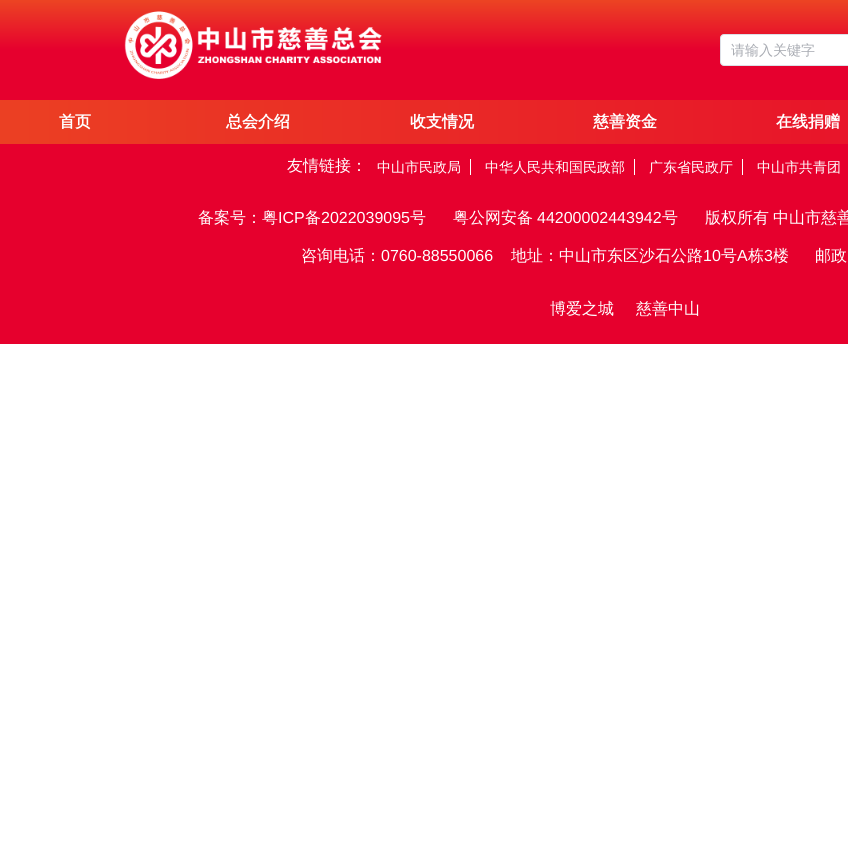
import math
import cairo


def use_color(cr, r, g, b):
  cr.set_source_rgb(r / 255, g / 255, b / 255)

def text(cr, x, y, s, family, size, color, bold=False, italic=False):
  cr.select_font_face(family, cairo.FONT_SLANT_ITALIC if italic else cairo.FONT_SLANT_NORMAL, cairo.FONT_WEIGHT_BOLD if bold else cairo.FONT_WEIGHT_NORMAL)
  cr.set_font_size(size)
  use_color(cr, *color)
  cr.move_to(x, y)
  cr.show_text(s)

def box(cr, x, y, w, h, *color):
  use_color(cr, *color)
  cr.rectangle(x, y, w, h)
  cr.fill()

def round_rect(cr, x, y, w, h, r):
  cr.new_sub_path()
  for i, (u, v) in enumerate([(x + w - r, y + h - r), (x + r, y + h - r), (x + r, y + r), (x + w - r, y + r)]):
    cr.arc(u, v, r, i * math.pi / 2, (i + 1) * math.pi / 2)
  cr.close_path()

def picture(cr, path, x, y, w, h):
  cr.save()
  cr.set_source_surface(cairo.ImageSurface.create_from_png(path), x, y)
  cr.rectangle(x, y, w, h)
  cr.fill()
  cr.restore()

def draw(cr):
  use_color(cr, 255, 255, 255)
  cr.paint()
  gradient = cairo.LinearGradient(625, 0, 625, 100)
  gradient.add_color_stop_rgba(0, 0.925, 0.267, 0.137, 1)
  gradient.add_color_stop_rgba(0.5, 0.902, 0, 0.18, 1)
  gradient.add_color_stop_rgba(1, 0.902, 0, 0.18, 1)
  cr.set_source(gradient)
  cr.rectangle(0, 0, 848, 100)
  cr.fill()
  picture(cr, "img_01.png", 124, 11, 258, 68)
  use_color(cr, 255, 255, 255)
  round_rect(cr, 720.5, 34.5, 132, 31, 3.5)
  cr.fill_preserve()
  use_color(cr, 220, 223, 230)
  cr.set_line_width(1)
  cr.stroke()
  gradient = cairo.LinearGradient(0, 122, 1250, 122)
  gradient.add_color_stop_rgba(0, 0.922, 0.251, 0.137, 1)
  gradient.add_color_stop_rgba(1, 0.902, 0, 0.176, 1)
  cr.set_source(gradient)
  cr.rectangle(0, 100, 848, 44)
  cr.fill()
  box(cr, 0, 144, 848, 200, 230, 0, 45)
  box(cr, 470, 159, 1, 16, 255, 255, 255)
  box(cr, 634, 159, 1, 16, 255, 255, 255)
  box(cr, 742, 159, 1, 16, 255, 255, 255)
  text(cr, 731, 55, "请输入关键字", "WenQuanYi Zen Hei Medium", 14, (168, 171, 178))
  text(cr, 59, 127, "首页", "WenQuanYi Zen Hei", 16, (255, 255, 255), bold=True)
  text(cr, 226, 127, "总会介绍", "WenQuanYi Zen Hei", 16, (255, 255, 255), bold=True)
  text(cr, 410, 127, "收支情况", "WenQuanYi Zen Hei", 16, (255, 255, 255), bold=True)
  text(cr, 593, 127, "慈善资金", "WenQuanYi Zen Hei", 16, (255, 255, 255), bold=True)
  text(cr, 776, 127, "在线捐赠", "WenQuanYi Zen Hei", 16, (255, 255, 255), bold=True)
  text(cr, 287, 171, "友情链接：", "WenQuanYi Zen Hei Medium", 16, (255, 255, 255))
  text(cr, 377, 172, "中山市民政局", "WenQuanYi Zen Hei Medium", 14, (255, 255, 255))
  text(cr, 485, 172, "中华人民共和国民政部", "WenQuanYi Zen Hei Medium", 14, (255, 255, 255))
  text(cr, 649, 172, "广东省民政厅", "WenQuanYi Zen Hei Medium", 14, (255, 255, 255))
  text(cr, 757, 172, "中山市共青团", "WenQuanYi Zen Hei Medium", 14, (255, 255, 255))
  text(cr, 198, 223, "备案号：粤", "WenQuanYi Zen Hei Medium", 16, (255, 255, 255))
  text(cr, 278, 223, "ICP", "Liberation Sans", 16, (255, 255, 255))
  text(cr, 305, 223, "备", "WenQuanYi Zen Hei Medium", 16, (255, 255, 255))
  text(cr, 321, 223, "2022039095", "Liberation Sans", 16, (255, 255, 255))
  text(cr, 410, 223, "号", "WenQuanYi Zen Hei Medium", 16, (255, 255, 255))
  text(cr, 453, 223, "粤公网安备", "WenQuanYi Zen Hei Medium", 16, (255, 255, 255))
  text(cr, 537, 223, "44200002443942", "Liberation Sans", 16, (255, 255, 255))
  text(cr, 662, 223, "号", "WenQuanYi Zen Hei Medium", 16, (255, 255, 255))
  text(cr, 705, 223, "版权所有", "WenQuanYi Zen Hei Medium", 16, (255, 255, 255))
  text(cr, 773, 223, "中山市慈善", "WenQuanYi Zen Hei Medium", 16, (255, 255, 255))
  text(cr, 301, 261, "咨询电话：", "WenQuanYi Zen Hei Medium", 16, (255, 255, 255))
  text(cr, 381, 261, "0760-88550066", "Liberation Sans", 16, (255, 255, 255))
  text(cr, 511, 261, "地址：中山市东区沙石公路", "WenQuanYi Zen Hei Medium", 16, (255, 255, 255))
  text(cr, 703, 261, "10", "Liberation Sans", 16, (255, 255, 255))
  text(cr, 721, 261, "号", "WenQuanYi Zen Hei Medium", 16, (255, 255, 255))
  text(cr, 737, 261, "A", "Liberation Sans", 16, (255, 255, 255))
  text(cr, 748, 261, "栋", "WenQuanYi Zen Hei Medium", 16, (255, 255, 255))
  text(cr, 764, 261, "3", "Liberation Sans", 16, (255, 255, 255))
  text(cr, 773, 261, "楼", "WenQuanYi Zen Hei Medium", 16, (255, 255, 255))
  text(cr, 815, 261, "邮政", "WenQuanYi Zen Hei Medium", 16, (255, 255, 255))
  text(cr, 550, 314, "博爱之城", "WenQuanYi Zen Hei Medium", 16, (255, 255, 255))
  text(cr, 636, 314, "慈善中山", "WenQuanYi Zen Hei Medium", 16, (255, 255, 255))


surface = cairo.ImageSurface(cairo.FORMAT_RGB24, 848, 848)
cr = cairo.Context(surface)
options = cairo.FontOptions()
options.set_hint_metrics(cairo.HINT_METRICS_OFF)
options.set_hint_style(cairo.HINT_STYLE_NONE)
cr.set_font_options(options)
cr.set_miter_limit(4)
draw(cr)
surface.write_to_png("out.png")
